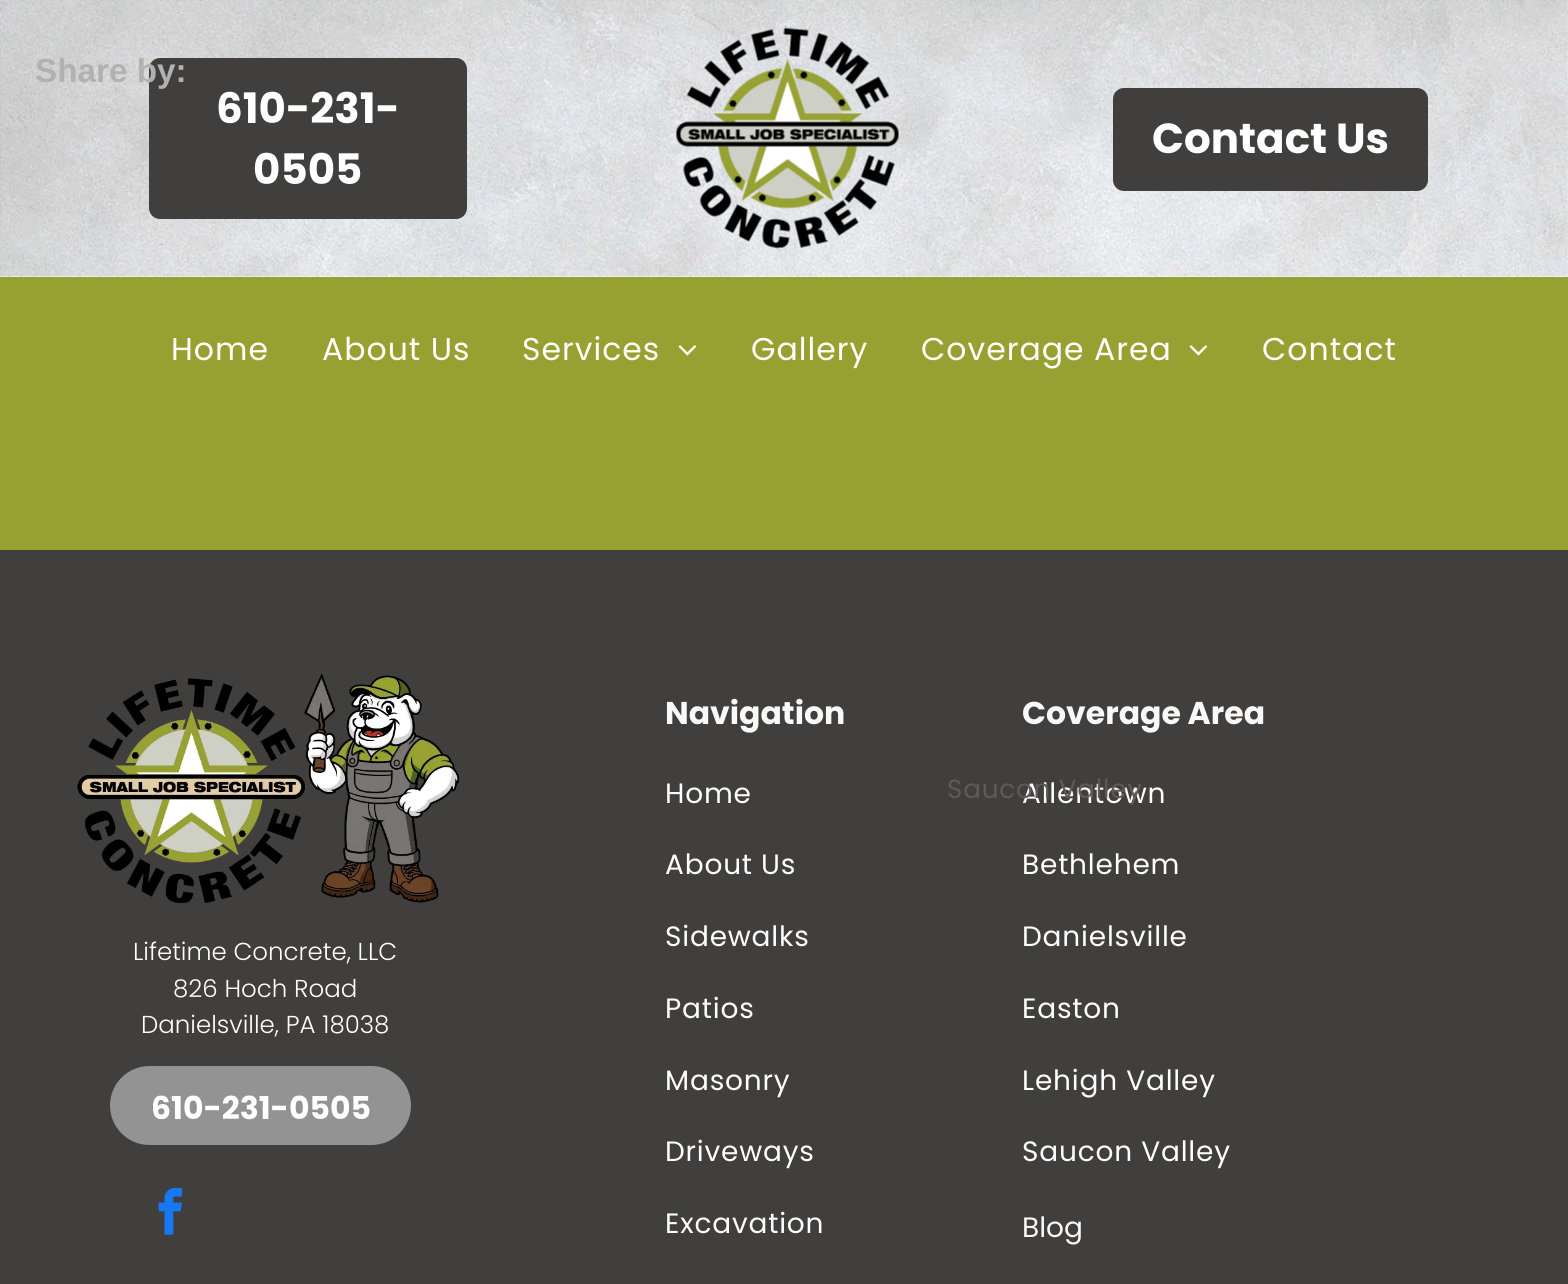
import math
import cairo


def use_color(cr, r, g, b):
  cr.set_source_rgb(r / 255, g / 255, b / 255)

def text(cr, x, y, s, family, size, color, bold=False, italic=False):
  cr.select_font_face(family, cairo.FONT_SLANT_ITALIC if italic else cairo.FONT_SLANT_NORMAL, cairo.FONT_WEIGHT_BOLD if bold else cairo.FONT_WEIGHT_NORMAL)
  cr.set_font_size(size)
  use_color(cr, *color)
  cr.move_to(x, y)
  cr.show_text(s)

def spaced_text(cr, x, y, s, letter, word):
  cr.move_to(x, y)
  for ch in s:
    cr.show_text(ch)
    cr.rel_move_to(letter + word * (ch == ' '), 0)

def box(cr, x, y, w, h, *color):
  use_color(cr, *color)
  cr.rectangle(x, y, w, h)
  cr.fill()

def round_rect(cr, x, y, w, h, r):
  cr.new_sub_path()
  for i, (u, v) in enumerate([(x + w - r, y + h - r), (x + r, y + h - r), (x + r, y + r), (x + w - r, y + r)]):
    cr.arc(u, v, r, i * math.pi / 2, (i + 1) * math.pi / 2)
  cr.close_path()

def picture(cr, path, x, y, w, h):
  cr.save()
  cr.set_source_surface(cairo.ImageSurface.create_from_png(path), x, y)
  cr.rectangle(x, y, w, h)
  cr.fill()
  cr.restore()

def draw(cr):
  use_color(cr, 64, 63, 61)
  cr.paint()
  box(cr, 0, 0, 1568, 277, 255, 255, 255)
  picture(cr, "img_01.png", 0, 0, 1568, 277)
  use_color(cr, 64, 63, 61)
  round_rect(cr, 149, 58, 318, 161, 11)
  cr.fill()
  picture(cr, "img_02.png", 676, 27, 223, 222)
  round_rect(cr, 1113, 88, 315, 103, 11)
  cr.fill()
  box(cr, 0, 277, 1568, 273, 151, 161, 49)
  picture(cr, "img_03.png", 678, 345, 19, 11)
  picture(cr, "img_03.png", 1189, 345, 19, 11)
  picture(cr, "img_04.png", 77, 674, 383, 229)
  use_color(cr, 147, 147, 147)
  round_rect(cr, 110, 1066, 301, 79, 39.5)
  cr.fill()
  picture(cr, "img_05.png", 158, 1187, 25, 48)
  text(cr, 35, 82, "Share by:", "Liberation Sans", 33.25, (177, 177, 177), bold=True)
  text(cr, 216, 123, "610-231-", "Poppins", 42, (255, 255, 255), bold=True)
  text(cr, 253, 184, "0505", "Poppins", 42, (255, 255, 255), bold=True)
  text(cr, 1152, 153, "Contact Us", "Poppins", 42, (255, 255, 255), bold=True)
  cr.select_font_face("Poppins")
  cr.set_font_size(31.5)
  spaced_text(cr, 171, 360, "Home", 1, 0)
  spaced_text(cr, 322, 360, "About Us", 1, 0)
  spaced_text(cr, 522, 360, "Services", 1, 0)
  spaced_text(cr, 751, 360, "Gallery", 1, 0)
  spaced_text(cr, 921, 360, "Coverage Area", 1, 0)
  spaced_text(cr, 1262, 360, "Contact", 1, 0)
  text(cr, 133, 960, "Lifetime Concrete, LLC", "Poppins Light", 24.5, (255, 255, 255))
  text(cr, 173, 997, "826 Hoch Road", "Poppins Light", 24.5, (255, 255, 255))
  text(cr, 141, 1033, "Danielsville, PA 18038", "Poppins Light", 24.5, (255, 255, 255))
  text(cr, 151, 1119, "610-231-0505", "Poppins", 31.5, (255, 255, 255), bold=True)
  text(cr, 665, 724, "Navigation", "Poppins", 31.5, (249, 249, 249), bold=True)
  cr.select_font_face("Poppins")
  cr.set_font_size(28)
  use_color(cr, 255, 255, 255)
  spaced_text(cr, 665, 803, "Home", 0.8, 0)
  spaced_text(cr, 665, 874, "About Us", 0.8, 0)
  spaced_text(cr, 665, 946, "Sidewalks", 0.8, 0)
  spaced_text(cr, 665, 1018, "Patios", 0.8, 0)
  spaced_text(cr, 665, 1090, "Masonry", 0.8, 0)
  spaced_text(cr, 665, 1161, "Driveways", 0.8, 0)
  spaced_text(cr, 665, 1233, "Excavation", 0.8, 0)
  text(cr, 1022, 724, "Coverage Area", "Poppins", 31.5, (249, 249, 249), bold=True)
  cr.select_font_face("Poppins")
  cr.set_font_size(28)
  use_color(cr, 255, 255, 255)
  spaced_text(cr, 1022, 803, "Allentown", 0.8, 0)
  cr.set_font_size(26.25)
  use_color(cr, 92, 91, 89)
  spaced_text(cr, 947, 798, "Saucon Valley", 0.75, 0)
  cr.set_font_size(28)
  use_color(cr, 255, 255, 255)
  spaced_text(cr, 1022, 874, "Bethlehem", 0.8, 0)
  spaced_text(cr, 1022, 946, "Danielsville", 0.8, 0)
  spaced_text(cr, 1022, 1018, "Easton", 0.8, 0)
  spaced_text(cr, 1022, 1090, "Lehigh Valley", 0.8, 0)
  spaced_text(cr, 1022, 1161, "Saucon Valley", 0.8, 0)
  text(cr, 1022, 1237, "Blog", "Poppins", 28, (249, 249, 249))


surface = cairo.ImageSurface(cairo.FORMAT_RGB24, 1568, 1284)
cr = cairo.Context(surface)
options = cairo.FontOptions()
options.set_hint_metrics(cairo.HINT_METRICS_OFF)
options.set_hint_style(cairo.HINT_STYLE_NONE)
cr.set_font_options(options)
cr.set_miter_limit(4)
draw(cr)
surface.write_to_png("out.png")
